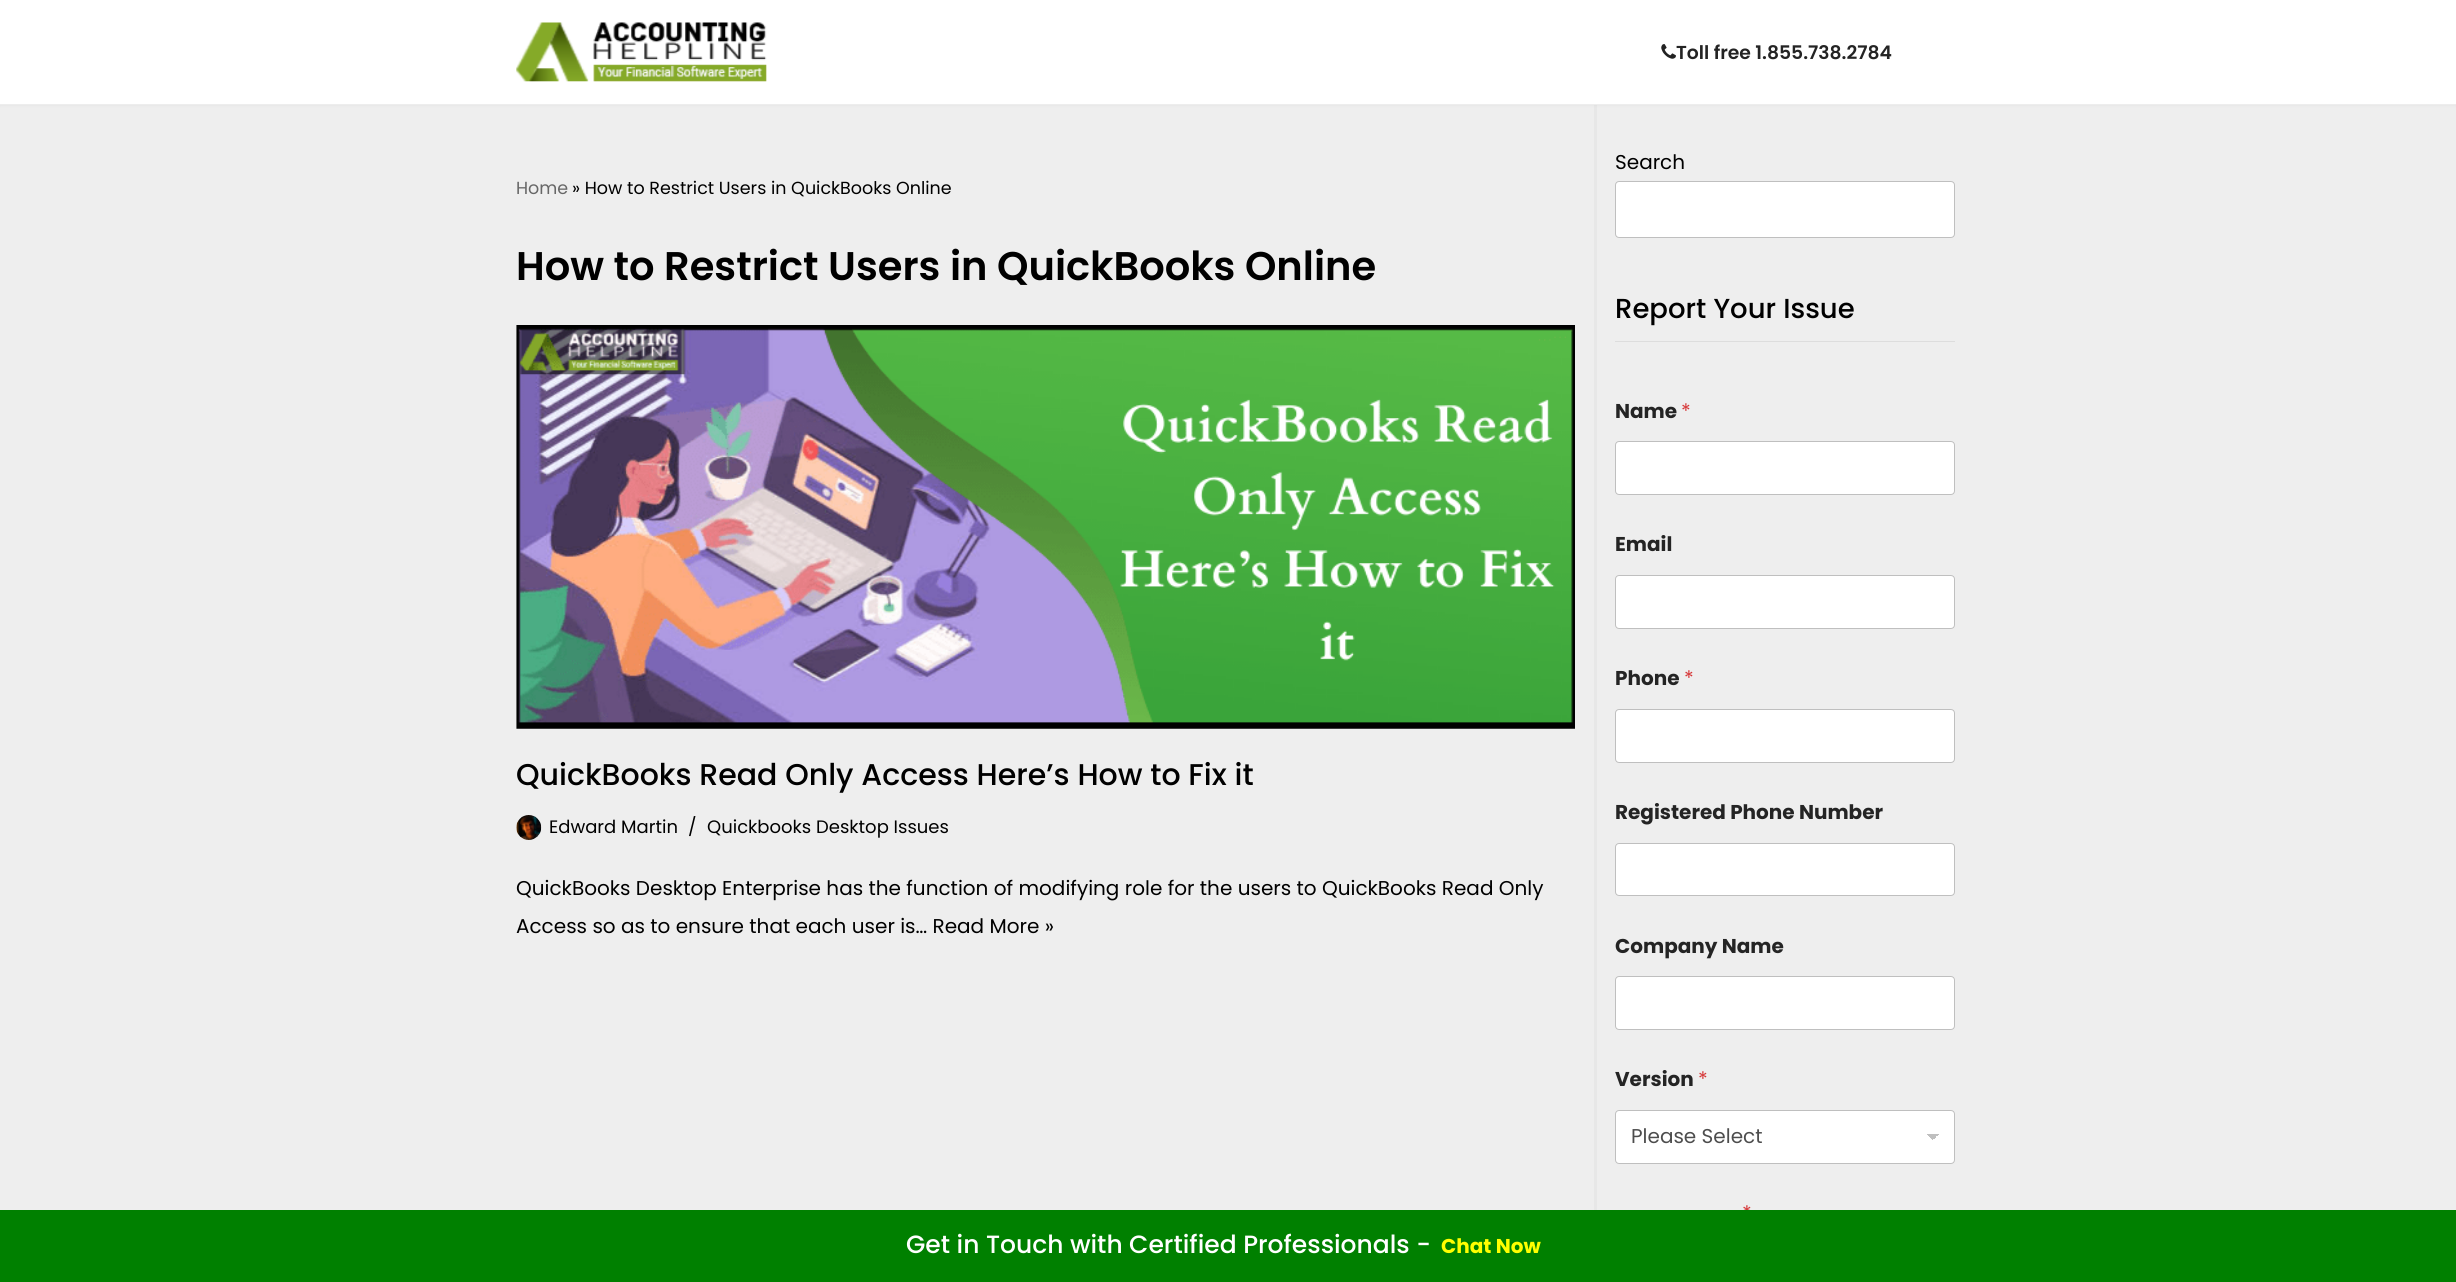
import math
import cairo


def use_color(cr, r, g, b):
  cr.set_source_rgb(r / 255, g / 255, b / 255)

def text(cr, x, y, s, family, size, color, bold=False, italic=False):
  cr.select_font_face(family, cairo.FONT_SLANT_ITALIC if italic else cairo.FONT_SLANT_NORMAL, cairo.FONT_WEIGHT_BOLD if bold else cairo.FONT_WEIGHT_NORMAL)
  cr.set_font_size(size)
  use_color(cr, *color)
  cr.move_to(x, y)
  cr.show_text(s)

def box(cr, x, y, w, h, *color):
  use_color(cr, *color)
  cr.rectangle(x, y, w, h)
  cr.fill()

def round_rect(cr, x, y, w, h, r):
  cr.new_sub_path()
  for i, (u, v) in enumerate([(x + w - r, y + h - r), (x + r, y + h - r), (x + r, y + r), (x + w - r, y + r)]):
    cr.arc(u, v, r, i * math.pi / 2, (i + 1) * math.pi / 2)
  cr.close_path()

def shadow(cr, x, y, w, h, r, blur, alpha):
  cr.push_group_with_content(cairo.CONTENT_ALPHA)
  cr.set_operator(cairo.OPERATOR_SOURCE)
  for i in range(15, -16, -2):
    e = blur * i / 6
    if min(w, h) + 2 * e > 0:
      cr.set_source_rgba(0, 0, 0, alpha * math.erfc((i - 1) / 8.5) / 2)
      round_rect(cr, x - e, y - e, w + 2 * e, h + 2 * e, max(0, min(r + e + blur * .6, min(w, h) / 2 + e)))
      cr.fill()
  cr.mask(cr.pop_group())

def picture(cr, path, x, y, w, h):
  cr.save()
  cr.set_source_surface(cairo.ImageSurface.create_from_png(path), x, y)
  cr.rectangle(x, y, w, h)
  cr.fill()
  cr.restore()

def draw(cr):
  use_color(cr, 238, 238, 238)
  cr.paint()
  box(cr, 1594, 105, 3, 1105, 231, 231, 231)
  use_color(cr, 0, 0, 0)
  shadow(cr, 0, -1, 2456, 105, 0, 2, 0.1)
  box(cr, 0, 0, 2456, 104, 255, 255, 255)
  box(cr, 0, 104, 2456, 1, 237, 237, 237)
  picture(cr, "img_01.png", 516, 22, 251, 60)
  picture(cr, "img_02.png", 1661, 44, 15, 15)
  picture(cr, "img_03.png", 516, 325, 1059, 404)
  picture(cr, "img_04.png", 516, 815, 26, 25)
  use_color(cr, 255, 255, 255)
  round_rect(cr, 1615.5, 181.5, 339, 56, 3.5)
  cr.fill_preserve()
  use_color(cr, 191, 191, 191)
  cr.set_line_width(1)
  cr.stroke()
  box(cr, 1615, 341, 340, 1, 221, 221, 221)
  use_color(cr, 255, 255, 255)
  round_rect(cr, 1615, 441, 340, 54, 4)
  cr.fill()
  round_rect(cr, 1615.5, 441.5, 339, 53, 3.5)
  cr.set_source_rgba(0, 0, 0, 0.25)
  cr.stroke()
  use_color(cr, 255, 255, 255)
  round_rect(cr, 1615, 575, 340, 54, 4)
  cr.fill()
  round_rect(cr, 1615.5, 575.5, 339, 53, 3.5)
  cr.set_source_rgba(0, 0, 0, 0.25)
  cr.stroke()
  use_color(cr, 255, 255, 255)
  round_rect(cr, 1615, 709, 340, 54, 4)
  cr.fill()
  round_rect(cr, 1615.5, 709.5, 339, 53, 3.5)
  cr.set_source_rgba(0, 0, 0, 0.25)
  cr.stroke()
  use_color(cr, 255, 255, 255)
  round_rect(cr, 1615, 843, 340, 53, 4)
  cr.fill()
  round_rect(cr, 1615.5, 843.5, 339, 52, 3.5)
  cr.set_source_rgba(0, 0, 0, 0.25)
  cr.stroke()
  use_color(cr, 255, 255, 255)
  round_rect(cr, 1615, 976, 340, 54, 4)
  cr.fill()
  round_rect(cr, 1615.5, 976.5, 339, 53, 3.5)
  cr.set_source_rgba(0, 0, 0, 0.25)
  cr.stroke()
  use_color(cr, 255, 255, 255)
  round_rect(cr, 1615, 1110, 340, 54, 4)
  cr.fill()
  gradient = cairo.LinearGradient(1933, 1134, 1939, 1140)
  gradient.add_color_stop_rgba(0.5, 0.749, 0.749, 0.749, 1)
  gradient.add_color_stop_rgba(0.5, 1, 1, 1, 1)
  cr.set_source(gradient)
  cr.rectangle(1933, 1134, 6, 5)
  cr.fill()
  gradient = cairo.LinearGradient(1926, 1140, 1933, 1134)
  gradient.add_color_stop_rgba(0.5, 1, 1, 1, 1)
  gradient.add_color_stop_rgba(0.5, 0.749, 0.749, 0.749, 1)
  cr.set_source(gradient)
  cr.rectangle(1926, 1134, 7, 6)
  cr.fill()
  round_rect(cr, 1615.5, 1110.5, 339, 53, 3.5)
  cr.set_source_rgba(0, 0, 0, 0.25)
  cr.stroke()
  text(cr, 1676, 59, "Toll free 1.855.738.2784", "Poppins SemiBold", 18.75, (36, 36, 36))
  text(cr, 516, 194, "Home", "Poppins", 17.5, (103, 103, 103))
  text(cr, 572, 194, "» How to Restrict Users in QuickBooks Online", "Poppins", 17.5, (0, 0, 0))
  text(cr, 516, 280, "How to Restrict Users in QuickBooks Online", "Poppins SemiBold", 40, (0, 0, 0))
  text(cr, 516, 785, "QuickBooks Read Only Access Here’s How to Fix it", "Poppins Medium", 30, (0, 0, 0))
  text(cr, 549, 833, "Edward Martin", "Poppins", 18, (0, 0, 0))
  text(cr, 688, 833, "/", "Poppins", 18, (0, 0, 0))
  text(cr, 707, 833, "Quickbooks Desktop Issues", "Poppins", 18, (0, 0, 0))
  text(cr, 516, 895, "QuickBooks Desktop Enterprise has the function of modifying role for the users to QuickBooks Read Only", "Poppins", 20, (0, 0, 0))
  text(cr, 516, 933, "Access so as to ensure that each user is… Read More »", "Poppins", 20, (0, 0, 0))
  text(cr, 1615, 169, "Search", "Poppins", 20, (0, 0, 0))
  text(cr, 1615, 318, "Report Your Issue", "Poppins Medium", 27.5, (0, 0, 0))
  text(cr, 1615, 418, "Name", "Poppins", 20, (36, 36, 36), bold=True)
  text(cr, 1681, 418, "*", "Poppins", 20, (214, 54, 55))
  text(cr, 1615, 551, "Email", "Poppins", 20, (36, 36, 36), bold=True)
  text(cr, 1615, 685, "Phone", "Poppins", 20, (36, 36, 36), bold=True)
  text(cr, 1684, 685, "*", "Poppins", 20, (214, 54, 55))
  text(cr, 1615, 819, "Registered Phone Number", "Poppins", 20, (36, 36, 36), bold=True)
  text(cr, 1615, 953, "Company Name", "Poppins", 20, (36, 36, 36), bold=True)
  text(cr, 1615, 1086, "Version", "Poppins", 20, (36, 36, 36), bold=True)
  text(cr, 1698, 1086, "*", "Poppins", 20, (214, 54, 55))
  text(cr, 1631, 1143, "Please Select", "Poppins", 20, (77, 77, 77))
  text(cr, 1742, 1220, "*", "Poppins", 20, (214, 54, 55))
  box(cr, 0, 1210, 2456, 72, 0, 128, 0)
  text(cr, 906, 1253, "Get in Touch with Certified Professionals -", "Poppins Medium", 25, (255, 255, 255))
  text(cr, 1441, 1253, "Chat Now", "Poppins", 20, (255, 255, 0), bold=True)


surface = cairo.ImageSurface(cairo.FORMAT_RGB24, 2456, 1282)
cr = cairo.Context(surface)
options = cairo.FontOptions()
options.set_hint_metrics(cairo.HINT_METRICS_OFF)
options.set_hint_style(cairo.HINT_STYLE_NONE)
cr.set_font_options(options)
cr.set_miter_limit(4)
draw(cr)
surface.write_to_png("out.png")
